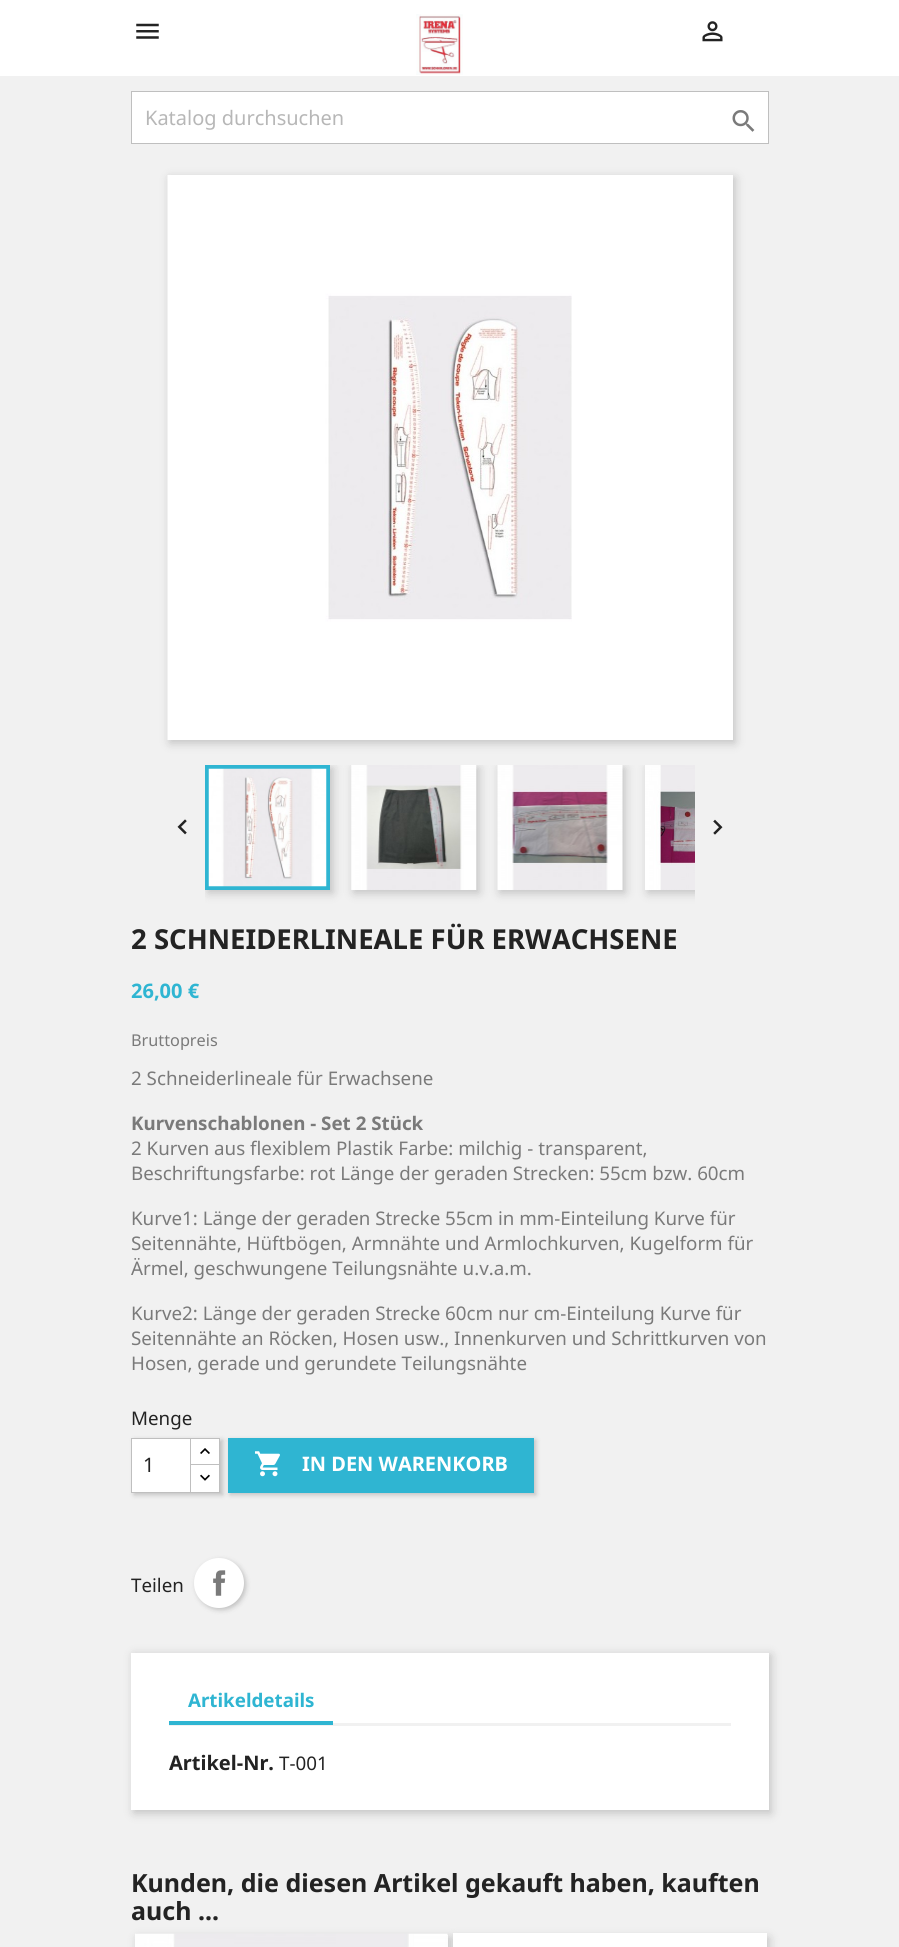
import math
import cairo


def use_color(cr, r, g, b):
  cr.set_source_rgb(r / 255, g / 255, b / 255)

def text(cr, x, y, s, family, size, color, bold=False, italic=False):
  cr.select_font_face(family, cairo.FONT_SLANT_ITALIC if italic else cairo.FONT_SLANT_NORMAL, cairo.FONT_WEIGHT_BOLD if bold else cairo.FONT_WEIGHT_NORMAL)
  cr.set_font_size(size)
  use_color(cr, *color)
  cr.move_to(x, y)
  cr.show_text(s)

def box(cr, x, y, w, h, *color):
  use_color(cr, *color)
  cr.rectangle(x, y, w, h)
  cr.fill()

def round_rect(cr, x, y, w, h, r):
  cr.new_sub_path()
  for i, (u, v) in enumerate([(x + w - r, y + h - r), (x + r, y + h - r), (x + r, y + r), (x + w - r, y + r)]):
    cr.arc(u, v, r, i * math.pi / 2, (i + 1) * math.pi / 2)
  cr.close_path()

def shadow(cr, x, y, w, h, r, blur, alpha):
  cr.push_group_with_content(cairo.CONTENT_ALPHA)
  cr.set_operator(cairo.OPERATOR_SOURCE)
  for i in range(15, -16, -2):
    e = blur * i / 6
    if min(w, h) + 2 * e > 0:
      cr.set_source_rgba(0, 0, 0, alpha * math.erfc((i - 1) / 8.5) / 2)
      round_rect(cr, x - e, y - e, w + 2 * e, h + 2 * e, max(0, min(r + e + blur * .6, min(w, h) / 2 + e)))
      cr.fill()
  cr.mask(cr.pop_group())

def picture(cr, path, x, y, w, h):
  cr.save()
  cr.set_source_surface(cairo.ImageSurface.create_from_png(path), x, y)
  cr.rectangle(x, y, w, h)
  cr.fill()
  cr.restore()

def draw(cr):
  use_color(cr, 241, 241, 241)
  cr.paint()
  box(cr, 0, 0, 899, 76, 255, 255, 255)
  picture(cr, "img_01.png", 136, 23, 23, 16)
  picture(cr, "img_02.png", 416, 14, 47, 61)
  picture(cr, "img_03.png", 702, 21, 21, 21)
  cr.rectangle(131.5, 91.5, 637, 52)
  cr.fill_preserve()
  use_color(cr, 191, 191, 191)
  cr.set_line_width(1)
  cr.stroke()
  picture(cr, "img_04.png", 732, 110, 23, 22)
  use_color(cr, 0, 0, 0)
  shadow(cr, 170, 178, 565, 565, 0, 5, 0.2)
  picture(cr, "img_05.png", 167, 175, 405, 565)
  box(cr, 572, 175, 161, 565, 255, 255, 255)
  cr.save()
  cr.rectangle(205, 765, 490, 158)
  cr.clip()
  use_color(cr, 0, 0, 0)
  shadow(cr, 208, 768, 125, 125, 0, 5, 0.2)
  shadow(cr, 354, 768, 125, 125, 0, 5, 0.2)
  shadow(cr, 500, 768, 125, 125, 0, 5, 0.2)
  shadow(cr, 648, 768, 125, 125, 0, 5, 0.2)
  cr.restore()
  cr.rectangle(207, 767, 121, 121)
  use_color(cr, 47, 181, 210)
  cr.set_line_width(4)
  cr.stroke()
  picture(cr, "img_06.png", 351, 765, 126, 125)
  picture(cr, "img_07.png", 497, 765, 126, 125)
  picture(cr, "img_08.png", 645, 765, 50, 125)
  picture(cr, "img_09.png", 208, 768, 119, 119)
  picture(cr, "img_10.png", 177, 819, 10, 16)
  picture(cr, "img_11.png", 713, 819, 10, 16)
  use_color(cr, 0, 0, 0)
  shadow(cr, 230, 1440, 306, 55, 0, 2.5, 0.2)
  box(cr, 228, 1438, 306, 55, 47, 181, 210)
  use_color(cr, 0, 0, 0)
  shadow(cr, 134, 1440, 89, 55, 0, 2.5, 0.2)
  box(cr, 191, 1439, 28, 25, 255, 255, 255)
  cr.rectangle(190.5, 1438.5, 29, 27)
  use_color(cr, 191, 191, 191)
  cr.set_line_width(1)
  cr.stroke()
  use_color(cr, 255, 255, 255)
  cr.rectangle(190.5, 1464.5, 29, 28)
  cr.fill_preserve()
  use_color(cr, 191, 191, 191)
  cr.stroke()
  use_color(cr, 255, 255, 255)
  cr.rectangle(131.5, 1438.5, 59, 54)
  cr.fill_preserve()
  use_color(cr, 191, 191, 191)
  cr.stroke()
  picture(cr, "img_12.png", 200, 1448, 10, 6)
  picture(cr, "img_13.png", 200, 1474, 10, 7)
  picture(cr, "img_14.png", 255, 1451, 25, 26)
  use_color(cr, 0, 0, 0)
  shadow(cr, 196, 1560, 50, 50, 25, 2.5, 0.2)
  use_color(cr, 255, 255, 255)
  cr.arc(219, 1583, 25, 0, 2 * math.pi)
  cr.fill()
  picture(cr, "img_15.png", 213, 1570, 13, 26)
  use_color(cr, 0, 0, 0)
  shadow(cr, 134, 1655, 637, 158, 0, 5, 0.2)
  box(cr, 131, 1653, 638, 157, 255, 255, 255)
  box(cr, 169, 1723, 562, 3, 241, 241, 241)
  box(cr, 169, 1721, 164, 4, 47, 181, 210)
  use_color(cr, 0, 0, 0)
  shadow(cr, 138, 1938, 312, 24, 0, 5, 0.2)
  box(cr, 447, 1935, 1, 12, 255, 255, 255)
  picture(cr, "img_16.png", 135, 1933, 313, 14)
  use_color(cr, 0, 0, 0)
  shadow(cr, 456, 1938, 313, 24, 0, 5, 0.2)
  box(cr, 453, 1933, 314, 14, 255, 255, 255)
  text(cr, 145, 125, "Katalog durchsuchen", "Noto Sans", 20, (183, 183, 183))
  text(cr, 131, 949, "2 SCHNEIDERLINEALE FÜR ERWACHSENE", "Noto Sans", 27.5, (35, 35, 35), bold=True)
  text(cr, 131, 998, "26,00 €", "Noto Sans", 20, (47, 181, 210), bold=True)
  text(cr, 131, 1046, "Bruttopreis", "Noto Sans", 16.25, (122, 122, 122))
  text(cr, 131, 1085, "2 Schneiderlineale für Erwachsene", "Noto Sans", 18.75, (122, 122, 122))
  text(cr, 131, 1130, "Kurvenschablonen - Set 2 Stück", "Noto Sans", 18.75, (122, 122, 122), bold=True)
  text(cr, 131, 1155, "2 Kurven aus flexiblem Plastik Farbe: milchig - transparent,", "Noto Sans", 18.75, (122, 122, 122))
  text(cr, 131, 1180, "Beschriftungsfarbe: rot Länge der geraden Strecken: 55cm bzw. 60cm", "Noto Sans", 18.75, (122, 122, 122))
  text(cr, 131, 1225, "Kurve1: Länge der geraden Strecke 55cm in mm-Einteilung Kurve für", "Noto Sans", 18.75, (122, 122, 122))
  text(cr, 131, 1250, "Seitennähte, Hüftbögen, Armnähte und Armlochkurven, Kugelform für", "Noto Sans", 18.75, (122, 122, 122))
  text(cr, 131, 1275, "Ärmel, geschwungene Teilungsnähte u.v.a.m.", "Noto Sans", 18.75, (122, 122, 122))
  text(cr, 131, 1320, "Kurve2: Länge der geraden Strecke 60cm nur cm-Einteilung Kurve für", "Noto Sans", 18.75, (122, 122, 122))
  text(cr, 131, 1345, "Seitennähte an Röcken, Hosen usw., Innenkurven und Schrittkurven von", "Noto Sans", 18.75, (122, 122, 122))
  text(cr, 131, 1370, "Hosen, gerade und gerundete Teilungsnähte", "Noto Sans", 18.75, (122, 122, 122))
  text(cr, 131, 1425, "Menge", "Noto Sans", 18.75, (35, 35, 35))
  text(cr, 143, 1472, "1", "Noto Sans", 20, (35, 35, 35))
  text(cr, 302, 1471, "IN DEN WARENKORB", "Noto Sans", 20, (255, 255, 255), bold=True)
  text(cr, 131, 1592, "Teilen", "Noto Sans", 18.75, (35, 35, 35))
  text(cr, 188, 1707, "Artikeldetails", "Noto Sans", 18.75, (47, 181, 210), bold=True)
  text(cr, 169, 1770, "Artikel-Nr.", "Noto Sans", 20, (35, 35, 35), bold=True)
  text(cr, 279, 1770, "T-001", "Noto Sans", 18.75, (35, 35, 35))
  text(cr, 131, 1892, "Kunden, die diesen Artikel gekauft haben, kauften", "Noto Sans", 25, (35, 35, 35), bold=True)
  text(cr, 131, 1920, "auch ...", "Noto Sans", 25, (35, 35, 35), bold=True)


surface = cairo.ImageSurface(cairo.FORMAT_RGB24, 899, 1947)
cr = cairo.Context(surface)
options = cairo.FontOptions()
options.set_hint_metrics(cairo.HINT_METRICS_OFF)
options.set_hint_style(cairo.HINT_STYLE_NONE)
cr.set_font_options(options)
cr.set_miter_limit(4)
draw(cr)
surface.write_to_png("out.png")
